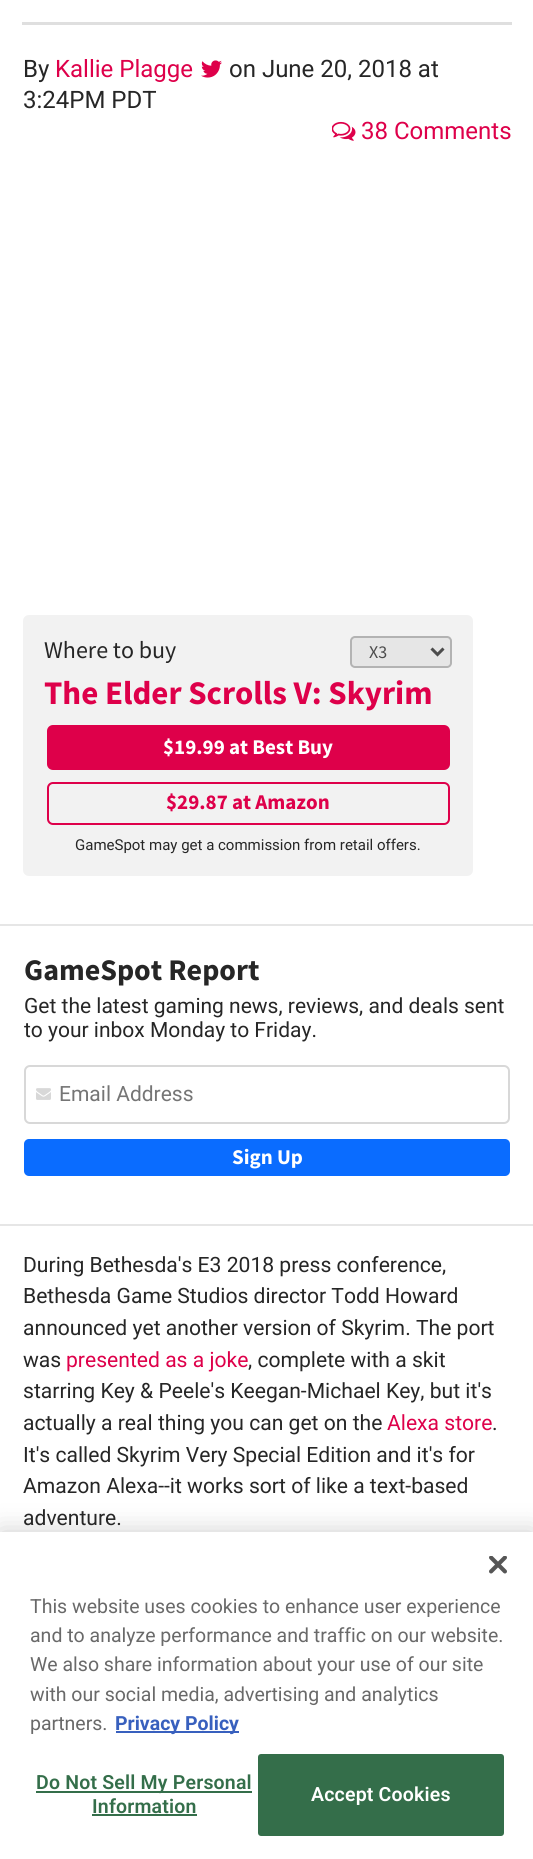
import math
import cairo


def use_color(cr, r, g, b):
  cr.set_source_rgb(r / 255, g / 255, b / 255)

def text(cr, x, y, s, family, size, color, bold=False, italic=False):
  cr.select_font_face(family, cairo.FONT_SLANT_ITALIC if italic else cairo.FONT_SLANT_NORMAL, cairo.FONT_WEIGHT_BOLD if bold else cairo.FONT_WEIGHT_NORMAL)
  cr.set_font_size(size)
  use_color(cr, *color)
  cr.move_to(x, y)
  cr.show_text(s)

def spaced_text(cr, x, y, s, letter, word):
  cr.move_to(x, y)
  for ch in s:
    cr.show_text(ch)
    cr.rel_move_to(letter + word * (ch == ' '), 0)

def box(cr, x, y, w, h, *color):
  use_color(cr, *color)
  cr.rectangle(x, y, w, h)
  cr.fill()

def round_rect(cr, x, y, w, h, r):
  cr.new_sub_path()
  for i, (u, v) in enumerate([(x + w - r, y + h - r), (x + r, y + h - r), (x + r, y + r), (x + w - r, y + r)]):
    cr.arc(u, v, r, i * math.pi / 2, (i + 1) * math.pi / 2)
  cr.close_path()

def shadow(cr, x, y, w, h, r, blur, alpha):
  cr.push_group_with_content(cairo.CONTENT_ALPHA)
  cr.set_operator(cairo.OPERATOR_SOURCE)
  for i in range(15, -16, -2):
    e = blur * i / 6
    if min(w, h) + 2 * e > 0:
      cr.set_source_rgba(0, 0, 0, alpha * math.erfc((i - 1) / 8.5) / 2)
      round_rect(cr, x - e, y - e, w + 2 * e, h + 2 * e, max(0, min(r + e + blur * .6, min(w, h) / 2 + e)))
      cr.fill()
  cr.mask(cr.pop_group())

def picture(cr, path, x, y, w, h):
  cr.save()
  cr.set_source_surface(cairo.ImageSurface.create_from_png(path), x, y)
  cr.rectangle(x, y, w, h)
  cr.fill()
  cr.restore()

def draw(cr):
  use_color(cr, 255, 255, 255)
  cr.paint()
  box(cr, 22, 22, 490, 3, 223, 223, 223)
  picture(cr, "img_01.png", 201, 60, 21, 18)
  picture(cr, "img_02.png", 332, 121, 24, 20)
  use_color(cr, 242, 242, 242)
  round_rect(cr, 23, 615, 450, 261, 6)
  cr.fill()
  use_color(cr, 230, 230, 230)
  round_rect(cr, 351, 637, 100, 30, 4)
  cr.fill_preserve()
  use_color(cr, 179, 179, 179)
  cr.stroke()
  cr.new_path()
  cr.move_to(431.5, 648.5)
  cr.line_to(437.5, 654.5)
  cr.line_to(443.5, 648.5)
  use_color(cr, 76, 76, 76)
  cr.set_line_width(3)
  cr.stroke()
  use_color(cr, 222, 0, 74)
  round_rect(cr, 48, 726, 401, 43, 5)
  cr.fill_preserve()
  cr.set_line_width(2)
  cr.stroke()
  round_rect(cr, 48, 783, 401, 41, 5)
  cr.stroke()
  box(cr, 0, 924, 533, 2, 230, 230, 230)
  box(cr, 0, 1224, 533, 2, 230, 230, 230)
  round_rect(cr, 25, 1066, 484, 57, 5)
  use_color(cr, 216, 216, 216)
  cr.stroke()
  picture(cr, "img_03.png", 36, 1088, 15, 12)
  use_color(cr, 10, 108, 255)
  round_rect(cr, 24, 1139, 486, 37, 5)
  cr.fill()
  use_color(cr, 0, 0, 0)
  shadow(cr, 0, 1532, 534, 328, 0, 13.5, 0.2)
  box(cr, 0, 1532, 533, 327, 255, 255, 255)
  picture(cr, "img_04.png", 489, 1556, 18, 18)
  box(cr, 116, 1731, 123, 2, 56, 96, 190)
  box(cr, 36, 1791, 216, 2, 52, 110, 74)
  box(cr, 92, 1814, 105, 2, 52, 110, 74)
  round_rect(cr, 259, 1755, 244, 80, 2)
  cr.fill_preserve()
  cr.stroke()
  text(cr, 23, 77, "By", "Roboto", 24, (38, 38, 38))
  text(cr, 55, 77, "Kallie Plagge", "Roboto", 24, (222, 0, 74))
  text(cr, 229, 77, "on June 20, 2018 at", "Roboto", 24, (38, 38, 38))
  text(cr, 23, 108, "3:24PM PDT", "Roboto", 24, (38, 38, 38))
  text(cr, 361, 139, "38 Comments", "Roboto", 24, (222, 0, 74))
  text(cr, 44, 658, "Where to buy", "Source Sans Pro", 24, (38, 38, 38))
  text(cr, 369, 658, "X3", "Source Sans Pro", 18, (76, 76, 76))
  text(cr, 44, 704, "The Elder Scrolls V: Skyrim", "Source Sans Pro", 33, (222, 0, 74), bold=True)
  text(cr, 163, 754, "$19.99 at Best Buy", "Source Sans Pro", 21, (255, 255, 255), bold=True)
  text(cr, 166, 809, "$29.87 at Amazon", "Source Sans Pro", 21, (222, 0, 74), bold=True)
  text(cr, 75, 850, "GameSpot may get a commission from retail offers.", "Roboto", 15, (38, 38, 38))
  text(cr, 24, 980, "GameSpot Report", "Source Sans Pro", 30, (38, 38, 38), bold=True)
  text(cr, 24, 1013, "Get the latest gaming news, reviews, and deals sent", "Roboto", 21, (38, 38, 38))
  text(cr, 24, 1037, "to your inbox Monday to Friday.", "Roboto", 21, (38, 38, 38))
  text(cr, 59, 1101, "Email Address", "Roboto", 21, (117, 117, 117))
  text(cr, 232, 1164, "Sign Up", "Source Sans Pro", 21, (255, 255, 255), bold=True)
  text(cr, 23, 1272, "During Bethesda's E3 2018 press conference,", "Roboto", 21.1, (38, 38, 38))
  text(cr, 23, 1303, "Bethesda Game Studios director Todd Howard", "Roboto", 21.1, (38, 38, 38))
  text(cr, 23, 1335, "announced yet another version of Skyrim. The port", "Roboto", 21.1, (38, 38, 38))
  text(cr, 23, 1367, "was", "Roboto", 21.1, (38, 38, 38))
  text(cr, 66, 1367, "presented as a joke", "Roboto", 21.1, (222, 0, 74))
  text(cr, 248, 1367, ", complete with a skit", "Roboto", 21.1, (38, 38, 38))
  text(cr, 23, 1398, "starring Key & Peele's Keegan-Michael Key, but it's", "Roboto", 21.1, (38, 38, 38))
  text(cr, 23, 1430, "actually a real thing you can get on the", "Roboto", 21.1, (38, 38, 38))
  text(cr, 387, 1430, "Alexa store", "Roboto", 21.1, (222, 0, 74))
  text(cr, 492, 1430, ".", "Roboto", 21.1, (38, 38, 38))
  text(cr, 23, 1462, "It's called Skyrim Very Special Edition and it's for", "Roboto", 21.1, (38, 38, 38))
  text(cr, 23, 1493, "Amazon Alexa--it works sort of like a text-based", "Roboto", 21.1, (38, 38, 38))
  text(cr, 23, 1525, "adventure.", "Roboto", 21.1, (38, 38, 38))
  text(cr, 30, 1613, "This website uses cookies to enhance user experience", "Roboto", 19.5, (105, 105, 105))
  text(cr, 30, 1642, "and to analyze performance and traffic on our website.", "Roboto", 19.5, (105, 105, 105))
  text(cr, 30, 1671, "We also share information about your use of our site", "Roboto", 19.5, (105, 105, 105))
  text(cr, 30, 1701, "with our social media, advertising and analytics", "Roboto", 19.5, (105, 105, 105))
  text(cr, 30, 1730, "partners.", "Roboto", 19.5, (105, 105, 105))
  text(cr, 115, 1730, "Privacy Policy", "Roboto", 19.5, (56, 96, 190), bold=True)
  cr.select_font_face("Roboto SemiBold")
  use_color(cr, 52, 110, 74)
  spaced_text(cr, 36, 1789, "Do Not Sell My Personal", 0.2, 0)
  spaced_text(cr, 92, 1813, "Information", 0.2, 0)
  use_color(cr, 255, 255, 255)
  spaced_text(cr, 311, 1801, "Accept Cookies", 0.2, 0)


surface = cairo.ImageSurface(cairo.FORMAT_RGB24, 533, 1859)
cr = cairo.Context(surface)
options = cairo.FontOptions()
options.set_hint_metrics(cairo.HINT_METRICS_OFF)
options.set_hint_style(cairo.HINT_STYLE_NONE)
cr.set_font_options(options)
cr.set_miter_limit(4)
draw(cr)
surface.write_to_png("out.png")
